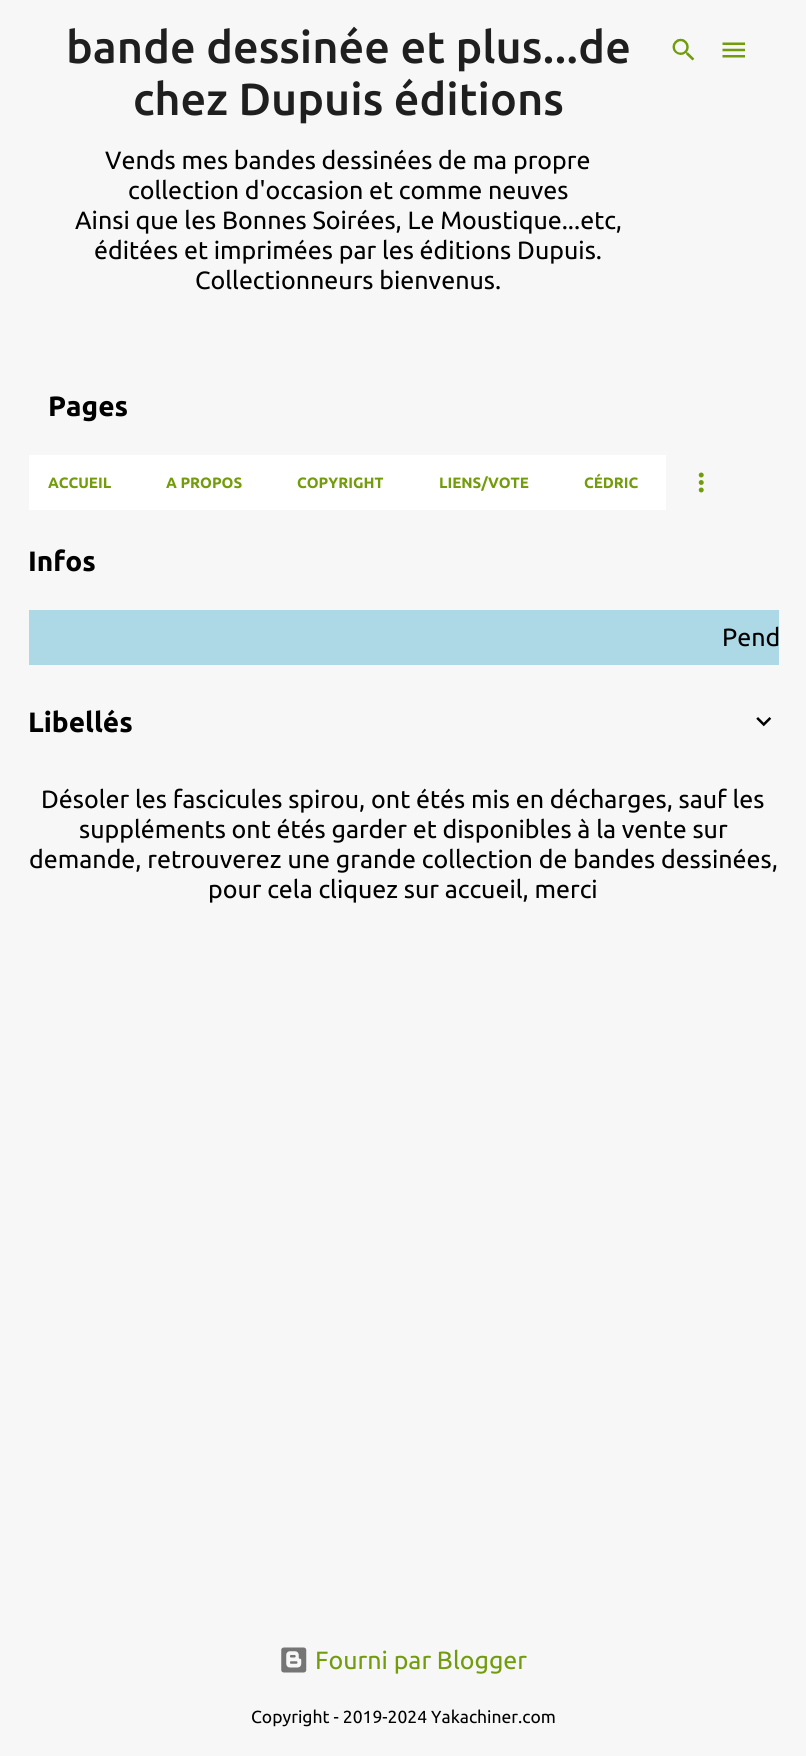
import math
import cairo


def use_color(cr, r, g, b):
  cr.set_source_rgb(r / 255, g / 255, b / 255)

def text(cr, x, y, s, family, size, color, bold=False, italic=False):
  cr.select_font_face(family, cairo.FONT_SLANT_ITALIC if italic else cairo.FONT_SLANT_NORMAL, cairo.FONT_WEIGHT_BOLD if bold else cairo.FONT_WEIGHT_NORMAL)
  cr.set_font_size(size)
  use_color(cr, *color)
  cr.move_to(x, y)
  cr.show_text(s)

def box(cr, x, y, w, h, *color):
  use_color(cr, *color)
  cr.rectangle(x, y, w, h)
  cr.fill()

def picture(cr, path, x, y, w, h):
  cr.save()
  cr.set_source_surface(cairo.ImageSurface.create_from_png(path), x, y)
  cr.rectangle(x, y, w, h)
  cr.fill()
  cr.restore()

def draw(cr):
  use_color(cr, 247, 247, 247)
  cr.paint()
  picture(cr, "img_01.png", 672, 38, 23, 23)
  picture(cr, "img_02.png", 722, 42, 23, 16)
  box(cr, 29, 455, 637, 55, 255, 255, 255)
  picture(cr, "img_03.png", 698, 472, 6, 21)
  box(cr, 29, 610, 750, 55, 173, 216, 230)
  picture(cr, "img_04.png", 756, 717, 16, 10)
  picture(cr, "img_05.png", 281, 1647, 26, 26)
  text(cr, 66, 63, "bande dessinée et plus...de", "Ubuntu Medium", 45, (31, 31, 31))
  text(cr, 133, 115, "chez Dupuis éditions", "Ubuntu Medium", 45, (31, 31, 31))
  text(cr, 105, 169, "Vends mes bandes dessinées de ma propre", "Ubuntu", 25, (0, 0, 0))
  text(cr, 128, 199, "collection d'occasion et comme neuves", "Ubuntu", 25, (0, 0, 0))
  text(cr, 75, 229, "Ainsi que les Bonnes Soirées, Le Moustique...etc,", "Ubuntu", 25, (0, 0, 0))
  text(cr, 94, 259, "éditées et imprimées par les éditions Dupuis.", "Ubuntu", 25, (0, 0, 0))
  text(cr, 195, 289, "Collectionneurs bienvenus.", "Ubuntu", 25, (0, 0, 0))
  text(cr, 48, 416, "Pages", "Ubuntu", 28, (0, 0, 0), bold=True)
  text(cr, 48, 488, "ACCUEIL", "Ubuntu", 15, (114, 156, 11), bold=True)
  text(cr, 166, 488, "A PROPOS", "Ubuntu", 15, (114, 156, 11), bold=True)
  text(cr, 297, 488, "COPYRIGHT", "Ubuntu", 15, (114, 156, 11), bold=True)
  text(cr, 439, 488, "LIENS/VOTE", "Ubuntu", 15, (114, 156, 11), bold=True)
  text(cr, 584, 488, "CÉDRIC", "Ubuntu", 15, (114, 156, 11), bold=True)
  text(cr, 28, 571, "Infos", "Ubuntu", 28, (0, 0, 0), bold=True)
  text(cr, 722, 646, "Pend", "Ubuntu", 25, (0, 0, 0))
  text(cr, 28, 732, "Libellés", "Ubuntu", 28, (0, 0, 0), bold=True)
  text(cr, 41, 808, "Désoler les fascicules spirou, ont étés mis en décharges, sauf les", "Ubuntu", 25, (0, 0, 0))
  text(cr, 79, 838, "suppléments ont étés garder et disponibles à la vente sur", "Ubuntu", 25, (0, 0, 0))
  text(cr, 29, 868, "demande, retrouverez une grande collection de bandes dessinées,", "Ubuntu", 25, (0, 0, 0))
  text(cr, 208, 898, "pour cela cliquez sur accueil, merci", "Ubuntu", 25, (0, 0, 0))
  text(cr, 315, 1669, "Fourni par Blogger", "Ubuntu", 25, (114, 156, 11))
  text(cr, 251, 1723, "Copyright - 2019-2024 Yakachiner.com", "Ubuntu", 17.5, (0, 0, 0))


surface = cairo.ImageSurface(cairo.FORMAT_RGB24, 806, 1756)
cr = cairo.Context(surface)
options = cairo.FontOptions()
options.set_hint_metrics(cairo.HINT_METRICS_OFF)
options.set_hint_style(cairo.HINT_STYLE_NONE)
cr.set_font_options(options)
cr.set_miter_limit(4)
draw(cr)
surface.write_to_png("out.png")
